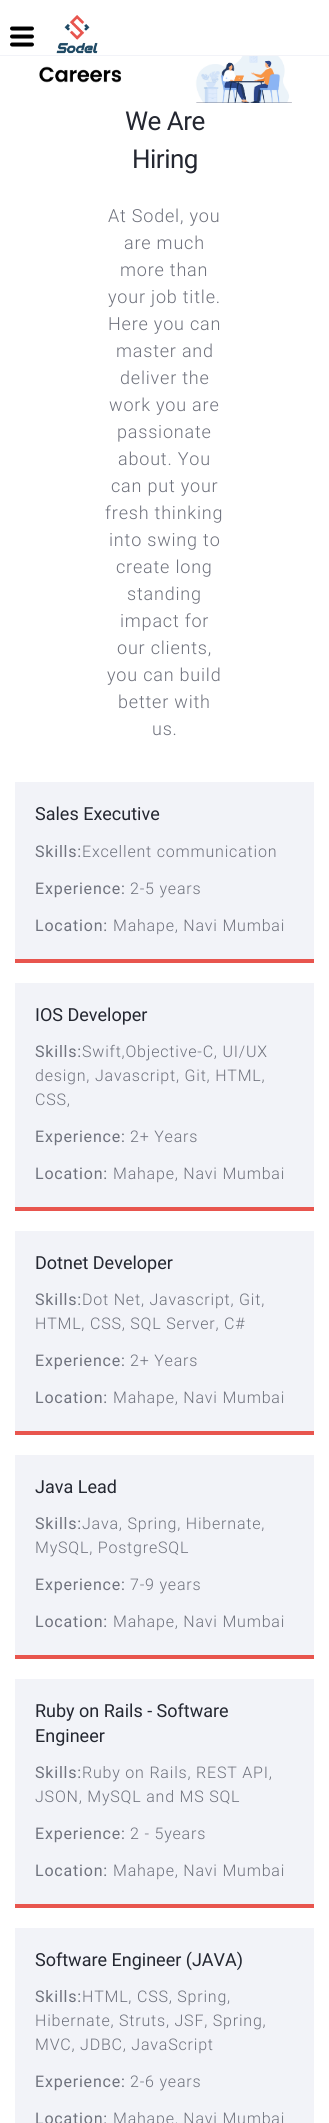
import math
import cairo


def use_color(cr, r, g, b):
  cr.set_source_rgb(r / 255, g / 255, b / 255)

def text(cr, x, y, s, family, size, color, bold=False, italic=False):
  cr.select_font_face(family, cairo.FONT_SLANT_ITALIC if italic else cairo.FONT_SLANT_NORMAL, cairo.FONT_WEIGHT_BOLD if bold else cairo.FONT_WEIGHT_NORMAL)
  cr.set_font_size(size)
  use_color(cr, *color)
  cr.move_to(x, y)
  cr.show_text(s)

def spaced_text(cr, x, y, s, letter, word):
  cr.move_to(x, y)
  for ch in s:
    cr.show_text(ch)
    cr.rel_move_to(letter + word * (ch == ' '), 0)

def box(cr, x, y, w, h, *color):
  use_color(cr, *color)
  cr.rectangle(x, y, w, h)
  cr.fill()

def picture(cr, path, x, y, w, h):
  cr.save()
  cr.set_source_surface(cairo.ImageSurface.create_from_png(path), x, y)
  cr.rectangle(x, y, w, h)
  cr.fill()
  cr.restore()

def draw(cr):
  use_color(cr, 255, 255, 255)
  cr.paint()
  use_color(cr, 0, 0, 0)
  cr.new_path()
  cr.move_to(32, 38.5)
  cr.line_to(12, 38.5)
  cr.curve_to(11, 38.5, 10, 37.5, 10, 36.5)
  cr.curve_to(10, 35.5, 11, 34.5, 12, 34.5)
  cr.line_to(32, 34.5)
  cr.curve_to(33, 34.5, 34, 35.5, 34, 36.5)
  cr.curve_to(34, 37.5, 33, 38.5, 32, 38.5)
  cr.close_path()
  cr.move_to(32, 46.5)
  cr.line_to(12, 46.5)
  cr.curve_to(11, 46.5, 10, 45.5, 10, 44.5)
  cr.curve_to(10, 43.5, 11, 42.5, 12, 42.5)
  cr.line_to(32, 42.5)
  cr.curve_to(33, 42.5, 34, 43.5, 34, 44.5)
  cr.curve_to(34, 45.5, 33, 46.5, 32, 46.5)
  cr.close_path()
  cr.move_to(32, 30.5)
  cr.line_to(12, 30.5)
  cr.curve_to(11, 30.5, 10, 29.5, 10, 28.5)
  cr.curve_to(10, 27.5, 11, 26.5, 12, 26.5)
  cr.line_to(32, 26.5)
  cr.curve_to(33, 26.5, 34, 27.5, 34, 28.5)
  cr.curve_to(34, 29.5, 33, 30.5, 32, 30.5)
  cr.close_path()
  cr.fill()
  picture(cr, "img_01.png", 56, 15, 42, 39)
  box(cr, 0, 55, 329, 1, 242, 243, 248)
  picture(cr, "img_02.png", 39, 56, 253, 47)
  box(cr, 15, 782, 299, 177, 242, 243, 248)
  box(cr, 15, 959, 299, 4, 232, 85, 78)
  box(cr, 15, 983, 299, 224, 242, 243, 248)
  box(cr, 15, 1207, 299, 4, 232, 85, 78)
  box(cr, 15, 1231, 299, 200, 242, 243, 248)
  box(cr, 15, 1431, 299, 4, 232, 85, 78)
  box(cr, 15, 1455, 299, 200, 242, 243, 248)
  box(cr, 15, 1655, 299, 4, 232, 85, 78)
  box(cr, 15, 1679, 299, 225, 242, 243, 248)
  box(cr, 15, 1904, 299, 4, 232, 85, 78)
  box(cr, 15, 1928, 299, 195, 242, 243, 248)
  cr.select_font_face("Roboto")
  cr.set_font_size(26)
  use_color(cr, 36, 39, 49)
  spaced_text(cr, 125, 130, "We Are", -0.5, 0)
  spaced_text(cr, 132, 168, "Hiring", -0.5, 0)
  cr.select_font_face("Roboto Light")
  cr.set_font_size(18)
  use_color(cr, 111, 114, 125)
  spaced_text(cr, 108, 222, "At Sodel, you", 0.8, 0)
  spaced_text(cr, 124, 249, "are much", 0.8, 0)
  spaced_text(cr, 120, 276, "more than", 0.8, 0)
  spaced_text(cr, 108, 303, "your job title.", 0.8, 0)
  spaced_text(cr, 108, 330, "Here you can", 0.8, 0)
  spaced_text(cr, 116, 357, "master and", 0.8, 0)
  spaced_text(cr, 120, 384, "deliver the", 0.8, 0)
  spaced_text(cr, 109, 411, "work you are", 0.8, 0)
  spaced_text(cr, 117, 438, "passionate", 0.8, 0)
  spaced_text(cr, 118, 465, "about. You", 0.8, 0)
  spaced_text(cr, 111, 492, "can put your", 0.8, 0)
  spaced_text(cr, 105, 519, "fresh thinking", 0.8, 0)
  spaced_text(cr, 109, 546, "into swing to", 0.8, 0)
  spaced_text(cr, 116, 573, "create long", 0.8, 0)
  spaced_text(cr, 127, 600, "standing", 0.8, 0)
  spaced_text(cr, 120, 627, "impact for", 0.8, 0)
  spaced_text(cr, 117, 654, "our clients,", 0.8, 0)
  spaced_text(cr, 107, 681, "you can build", 0.8, 0)
  spaced_text(cr, 118, 708, "better with", 0.8, 0)
  spaced_text(cr, 152, 735, "us.", 0.8, 0)
  text(cr, 35, 820, "Sales Executive", "Roboto", 18, (36, 39, 49))
  cr.set_font_size(16)
  use_color(cr, 111, 114, 125)
  spaced_text(cr, 35, 857, "Skills:", 0.8, 0)
  cr.select_font_face("Roboto Light")
  spaced_text(cr, 82, 857, "Excellent communication", 0.8, 0)
  cr.select_font_face("Roboto")
  spaced_text(cr, 35, 894, "Experience:", 0.8, 0)
  cr.select_font_face("Roboto Light")
  spaced_text(cr, 130, 894, "2-5 years", 0.8, 0)
  cr.select_font_face("Roboto")
  spaced_text(cr, 35, 931, "Location:", 0.8, 0)
  cr.select_font_face("Roboto Light")
  spaced_text(cr, 113, 931, "Mahape, Navi Mumbai", 0.8, 0)
  text(cr, 35, 1021, "IOS Developer", "Roboto", 18, (36, 39, 49))
  cr.set_font_size(16)
  use_color(cr, 111, 114, 125)
  spaced_text(cr, 35, 1057, "Skills:", 0.8, 0)
  cr.select_font_face("Roboto Light")
  spaced_text(cr, 82, 1057, "Swift,Objective-C, UI/UX", 0.8, 0)
  spaced_text(cr, 35, 1081, "design, Javascript, Git, HTML,", 0.8, 0)
  spaced_text(cr, 35, 1105, "CSS,", 0.8, 0)
  cr.select_font_face("Roboto")
  spaced_text(cr, 35, 1142, "Experience:", 0.8, 0)
  cr.select_font_face("Roboto Light")
  spaced_text(cr, 130, 1142, "2+ Years", 0.8, 0)
  cr.select_font_face("Roboto")
  spaced_text(cr, 35, 1179, "Location:", 0.8, 0)
  cr.select_font_face("Roboto Light")
  spaced_text(cr, 113, 1179, "Mahape, Navi Mumbai", 0.8, 0)
  text(cr, 35, 1269, "Dotnet Developer", "Roboto", 18, (36, 39, 49))
  cr.set_font_size(16)
  use_color(cr, 111, 114, 125)
  spaced_text(cr, 35, 1305, "Skills:", 0.8, 0)
  cr.select_font_face("Roboto Light")
  spaced_text(cr, 82, 1305, "Dot Net, Javascript, Git,", 0.8, 0)
  spaced_text(cr, 35, 1329, "HTML, CSS, SQL Server, C#", 0.8, 0)
  cr.select_font_face("Roboto")
  spaced_text(cr, 35, 1366, "Experience:", 0.8, 0)
  cr.select_font_face("Roboto Light")
  spaced_text(cr, 130, 1366, "2+ Years", 0.8, 0)
  cr.select_font_face("Roboto")
  spaced_text(cr, 35, 1403, "Location:", 0.8, 0)
  cr.select_font_face("Roboto Light")
  spaced_text(cr, 113, 1403, "Mahape, Navi Mumbai", 0.8, 0)
  text(cr, 35, 1493, "Java Lead", "Roboto", 18, (36, 39, 49))
  cr.set_font_size(16)
  use_color(cr, 111, 114, 125)
  spaced_text(cr, 35, 1529, "Skills:", 0.8, 0)
  cr.select_font_face("Roboto Light")
  spaced_text(cr, 82, 1529, "Java, Spring, Hibernate,", 0.8, 0)
  spaced_text(cr, 35, 1553, "MySQL, PostgreSQL", 0.8, 0)
  cr.select_font_face("Roboto")
  spaced_text(cr, 35, 1590, "Experience:", 0.8, 0)
  cr.select_font_face("Roboto Light")
  spaced_text(cr, 130, 1590, "7-9 years", 0.8, 0)
  cr.select_font_face("Roboto")
  spaced_text(cr, 35, 1627, "Location:", 0.8, 0)
  cr.select_font_face("Roboto Light")
  spaced_text(cr, 113, 1627, "Mahape, Navi Mumbai", 0.8, 0)
  text(cr, 35, 1717, "Ruby on Rails - Software", "Roboto", 18, (36, 39, 49))
  text(cr, 35, 1742, "Engineer", "Roboto", 18, (36, 39, 49))
  cr.set_font_size(16)
  use_color(cr, 111, 114, 125)
  spaced_text(cr, 35, 1778, "Skills:", 0.8, 0)
  cr.select_font_face("Roboto Light")
  spaced_text(cr, 82, 1778, "Ruby on Rails, REST API,", 0.8, 0)
  spaced_text(cr, 35, 1802, "JSON, MySQL and MS SQL", 0.8, 0)
  cr.select_font_face("Roboto")
  spaced_text(cr, 35, 1839, "Experience:", 0.8, 0)
  cr.select_font_face("Roboto Light")
  spaced_text(cr, 130, 1839, "2 - 5years", 0.8, 0)
  cr.select_font_face("Roboto")
  spaced_text(cr, 35, 1876, "Location:", 0.8, 0)
  cr.select_font_face("Roboto Light")
  spaced_text(cr, 113, 1876, "Mahape, Navi Mumbai", 0.8, 0)
  text(cr, 35, 1966, "Software Engineer (JAVA)", "Roboto", 18, (36, 39, 49))
  cr.set_font_size(16)
  use_color(cr, 111, 114, 125)
  spaced_text(cr, 35, 2002, "Skills:", 0.8, 0)
  cr.select_font_face("Roboto Light")
  spaced_text(cr, 82, 2002, "HTML, CSS, Spring,", 0.8, 0)
  spaced_text(cr, 35, 2026, "Hibernate, Struts, JSF, Spring,", 0.8, 0)
  spaced_text(cr, 35, 2050, "MVC, JDBC, JavaScript", 0.8, 0)
  cr.select_font_face("Roboto")
  spaced_text(cr, 35, 2087, "Experience:", 0.8, 0)
  cr.select_font_face("Roboto Light")
  spaced_text(cr, 130, 2087, "2-6 years", 0.8, 0)
  cr.select_font_face("Roboto")
  spaced_text(cr, 35, 2124, "Location:", 0.8, 0)
  cr.select_font_face("Roboto Light")
  spaced_text(cr, 113, 2124, "Mahape, Navi Mumbai", 0.8, 0)


surface = cairo.ImageSurface(cairo.FORMAT_RGB24, 329, 2123)
cr = cairo.Context(surface)
options = cairo.FontOptions()
options.set_hint_metrics(cairo.HINT_METRICS_OFF)
options.set_hint_style(cairo.HINT_STYLE_NONE)
cr.set_font_options(options)
cr.set_miter_limit(4)
draw(cr)
surface.write_to_png("out.png")
